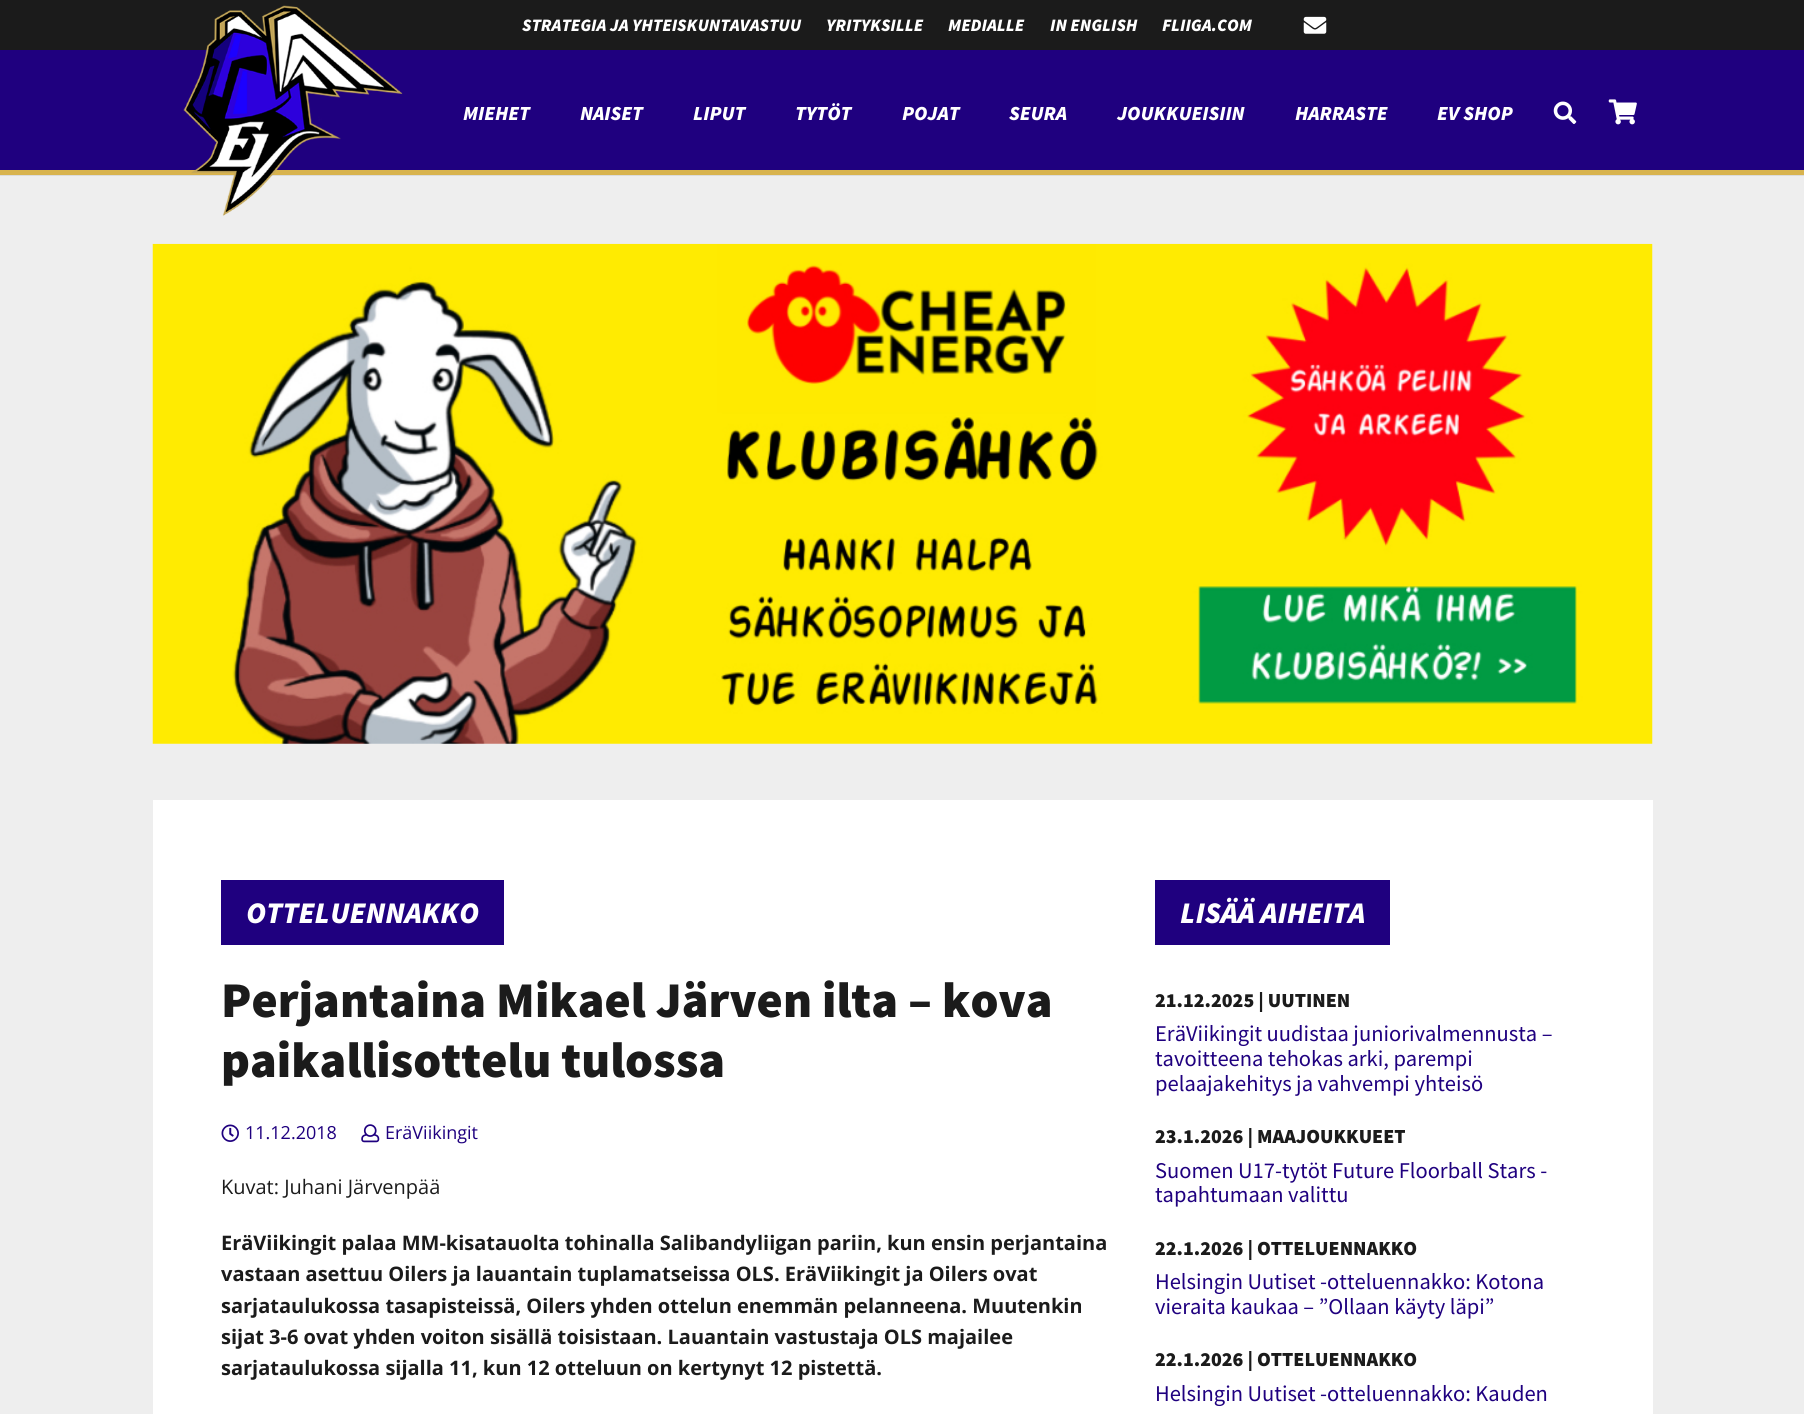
import math
import cairo


def use_color(cr, r, g, b):
  cr.set_source_rgb(r / 255, g / 255, b / 255)

def text(cr, x, y, s, family, size, color, bold=False, italic=False):
  cr.select_font_face(family, cairo.FONT_SLANT_ITALIC if italic else cairo.FONT_SLANT_NORMAL, cairo.FONT_WEIGHT_BOLD if bold else cairo.FONT_WEIGHT_NORMAL)
  cr.set_font_size(size)
  use_color(cr, *color)
  cr.move_to(x, y)
  cr.show_text(s)

def box(cr, x, y, w, h, *color):
  use_color(cr, *color)
  cr.rectangle(x, y, w, h)
  cr.fill()

def picture(cr, path, x, y, w, h):
  cr.save()
  cr.set_source_surface(cairo.ImageSurface.create_from_png(path), x, y)
  cr.rectangle(x, y, w, h)
  cr.fill()
  cr.restore()

def draw(cr):
  use_color(cr, 238, 238, 238)
  cr.paint()
  box(cr, 0, 0, 1804, 50, 27, 27, 27)
  picture(cr, "img_01.png", 1303, 16, 24, 18)
  box(cr, 0, 175, 1804, 1, 219, 219, 219)
  box(cr, 0, 50, 1804, 120, 31, 0, 127)
  box(cr, 0, 170, 1804, 5, 216, 179, 78)
  picture(cr, "img_02.png", 183, 5, 220, 211)
  picture(cr, "img_03.png", 1553, 101, 24, 23)
  picture(cr, "img_04.png", 1608, 99, 29, 26)
  picture(cr, "img_05.png", 152, 243, 1501, 501)
  box(cr, 153, 800, 1500, 614, 255, 255, 255)
  box(cr, 221, 880, 283, 65, 31, 0, 127)
  picture(cr, "img_06.png", 221, 1124, 18, 18)
  picture(cr, "img_07.png", 361, 1124, 19, 19)
  box(cr, 1155, 880, 235, 65, 31, 0, 127)
  text(cr, 522, 31, "STRATEGIA JA YHTEISKUNTAVASTUU", "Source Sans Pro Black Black", 17.5, (255, 255, 255), italic=True)
  text(cr, 826, 31, "YRITYKSILLE", "Source Sans Pro Black Black", 17.5, (255, 255, 255), italic=True)
  text(cr, 948, 31, "MEDIALLE", "Source Sans Pro Black Black", 17.5, (255, 255, 255), italic=True)
  text(cr, 1050, 31, "IN ENGLISH", "Source Sans Pro Black Black", 17.5, (255, 255, 255), italic=True)
  text(cr, 1162, 31, "FLIIGA.COM", "Source Sans Pro Black Black", 17.5, (255, 255, 255), italic=True)
  text(cr, 463, 120, "MIEHET", "Source Sans Pro Black Black", 20, (255, 255, 255), italic=True)
  text(cr, 580, 120, "NAISET", "Source Sans Pro Black Black", 20, (255, 255, 255), italic=True)
  text(cr, 693, 120, "LIPUT", "Source Sans Pro Black Black", 20, (255, 255, 255), italic=True)
  text(cr, 795, 120, "TYTÖT", "Source Sans Pro Black Black", 20, (255, 255, 255), italic=True)
  text(cr, 902, 120, "POJAT", "Source Sans Pro Black Black", 20, (255, 255, 255), italic=True)
  text(cr, 1009, 120, "SEURA", "Source Sans Pro Black Black", 20, (255, 255, 255), italic=True)
  text(cr, 1117, 120, "JOUKKUEISIIN", "Source Sans Pro Black Black", 20, (255, 255, 255), italic=True)
  text(cr, 1295, 120, "HARRASTE", "Source Sans Pro Black Black", 20, (255, 255, 255), italic=True)
  text(cr, 1437, 120, "EV SHOP", "Source Sans Pro Black Black", 20, (255, 255, 255), italic=True)
  text(cr, 246, 923, "OTTELUENNAKKO", "Source Sans Pro Black Black", 30, (255, 255, 255), italic=True)
  text(cr, 221, 1017, "Perjantaina Mikael Järven ilta – kova", "Source Sans Pro Black Black", 50, (27, 27, 27))
  text(cr, 221, 1077, "paikallisottelu tulossa", "Source Sans Pro Black Black", 50, (27, 27, 27))
  text(cr, 245, 1139, "11.12.2018", "Open Sans", 18, (31, 0, 127))
  text(cr, 385, 1139, "EräViikingit", "Open Sans", 18, (31, 0, 127))
  text(cr, 221, 1194, "Kuvat: Juhani Järvenpää", "Open Sans", 20, (27, 27, 27))
  text(cr, 221, 1250, "EräViikingit palaa MM-kisatauolta tohinalla Salibandyliigan pariin, kun ensin perjantaina", "Open Sans", 20, (27, 27, 27), bold=True)
  text(cr, 221, 1281, "vastaan asettuu Oilers ja lauantain tuplamatseissa OLS. EräViikingit ja Oilers ovat", "Open Sans", 20, (27, 27, 27), bold=True)
  text(cr, 221, 1313, "sarjataulukossa tasapisteissä, Oilers yhden ottelun enemmän pelanneena. Muutenkin", "Open Sans", 20, (27, 27, 27), bold=True)
  text(cr, 221, 1344, "sijat 3-6 ovat yhden voiton sisällä toisistaan. Lauantain vastustaja OLS majailee", "Open Sans", 20, (27, 27, 27), bold=True)
  text(cr, 221, 1375, "sarjataulukossa sijalla 11, kun 12 otteluun on kertynyt 12 pistettä.", "Open Sans", 20, (27, 27, 27), bold=True)
  text(cr, 1180, 923, "LISÄÄ AIHEITA", "Source Sans Pro Black Black", 30, (255, 255, 255), italic=True)
  text(cr, 1155, 1007, "21.12.2025 | UUTINEN", "Source Sans Pro Black Black", 20, (27, 27, 27))
  text(cr, 1155, 1041, "EräViikingit uudistaa juniorivalmennusta –", "Source Sans Pro", 22.5, (31, 0, 127))
  text(cr, 1155, 1066, "tavoitteena tehokas arki, parempi", "Source Sans Pro", 22.5, (31, 0, 127))
  text(cr, 1155, 1091, "pelaajakehitys ja vahvempi yhteisö", "Source Sans Pro", 22.5, (31, 0, 127))
  text(cr, 1155, 1143, "23.1.2026 | MAAJOUKKUEET", "Source Sans Pro Black Black", 20, (27, 27, 27))
  text(cr, 1155, 1178, "Suomen U17-tytöt Future Floorball Stars -", "Source Sans Pro", 22.5, (31, 0, 127))
  text(cr, 1155, 1202, "tapahtumaan valittu", "Source Sans Pro", 22.5, (31, 0, 127))
  text(cr, 1155, 1255, "22.1.2026 | OTTELUENNAKKO", "Source Sans Pro Black Black", 20, (27, 27, 27))
  text(cr, 1155, 1289, "Helsingin Uutiset -otteluennakko: Kotona", "Source Sans Pro", 22.5, (31, 0, 127))
  text(cr, 1155, 1314, "vieraita kaukaa – ”Ollaan käyty läpi”", "Source Sans Pro", 22.5, (31, 0, 127))
  text(cr, 1155, 1366, "22.1.2026 | OTTELUENNAKKO", "Source Sans Pro Black Black", 20, (27, 27, 27))
  text(cr, 1155, 1401, "Helsingin Uutiset -otteluennakko: Kauden", "Source Sans Pro", 22.5, (31, 0, 127))


surface = cairo.ImageSurface(cairo.FORMAT_RGB24, 1804, 1414)
cr = cairo.Context(surface)
options = cairo.FontOptions()
options.set_hint_metrics(cairo.HINT_METRICS_OFF)
options.set_hint_style(cairo.HINT_STYLE_NONE)
cr.set_font_options(options)
cr.set_miter_limit(4)
draw(cr)
surface.write_to_png("out.png")
